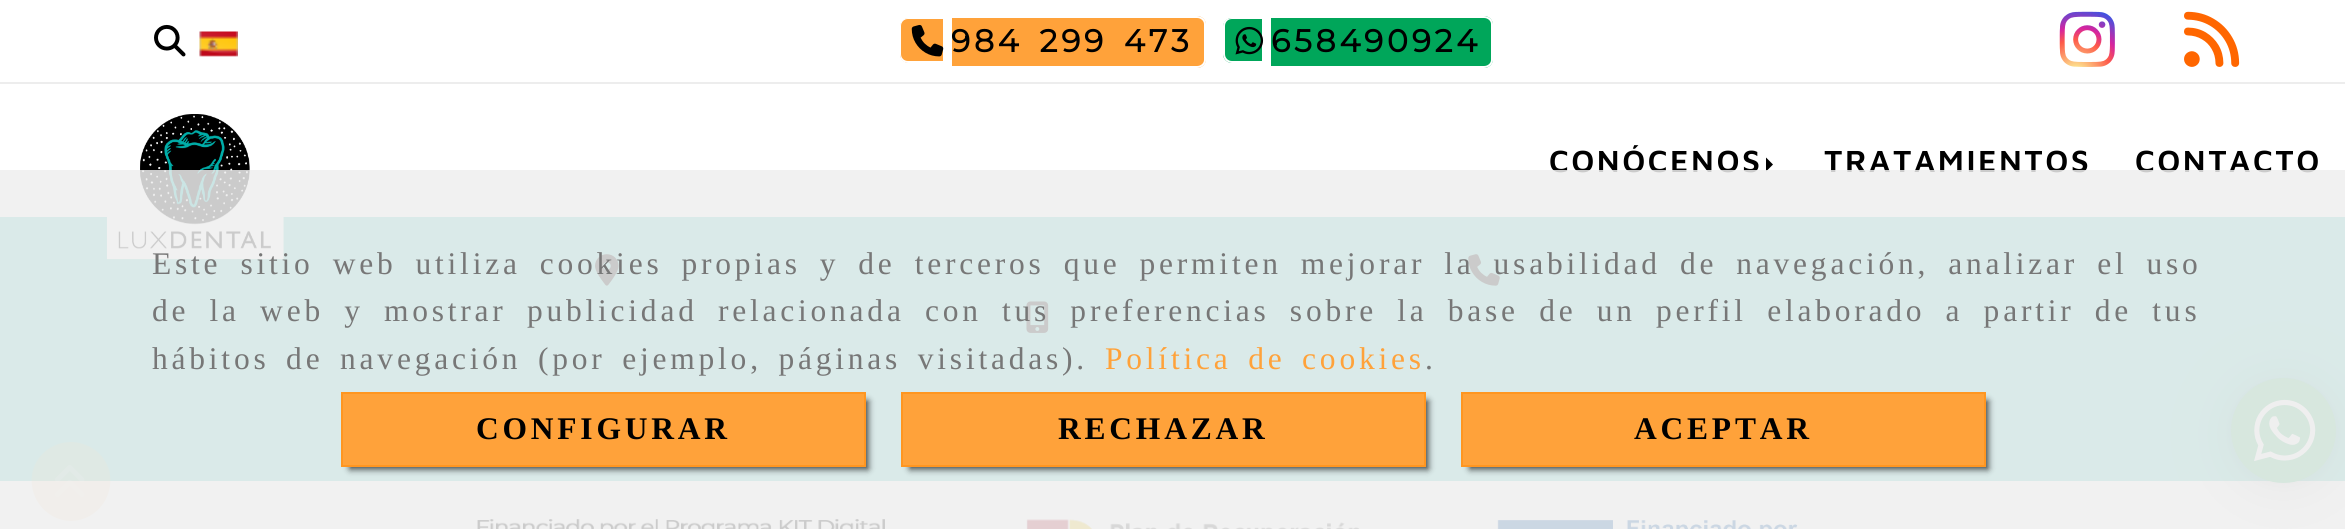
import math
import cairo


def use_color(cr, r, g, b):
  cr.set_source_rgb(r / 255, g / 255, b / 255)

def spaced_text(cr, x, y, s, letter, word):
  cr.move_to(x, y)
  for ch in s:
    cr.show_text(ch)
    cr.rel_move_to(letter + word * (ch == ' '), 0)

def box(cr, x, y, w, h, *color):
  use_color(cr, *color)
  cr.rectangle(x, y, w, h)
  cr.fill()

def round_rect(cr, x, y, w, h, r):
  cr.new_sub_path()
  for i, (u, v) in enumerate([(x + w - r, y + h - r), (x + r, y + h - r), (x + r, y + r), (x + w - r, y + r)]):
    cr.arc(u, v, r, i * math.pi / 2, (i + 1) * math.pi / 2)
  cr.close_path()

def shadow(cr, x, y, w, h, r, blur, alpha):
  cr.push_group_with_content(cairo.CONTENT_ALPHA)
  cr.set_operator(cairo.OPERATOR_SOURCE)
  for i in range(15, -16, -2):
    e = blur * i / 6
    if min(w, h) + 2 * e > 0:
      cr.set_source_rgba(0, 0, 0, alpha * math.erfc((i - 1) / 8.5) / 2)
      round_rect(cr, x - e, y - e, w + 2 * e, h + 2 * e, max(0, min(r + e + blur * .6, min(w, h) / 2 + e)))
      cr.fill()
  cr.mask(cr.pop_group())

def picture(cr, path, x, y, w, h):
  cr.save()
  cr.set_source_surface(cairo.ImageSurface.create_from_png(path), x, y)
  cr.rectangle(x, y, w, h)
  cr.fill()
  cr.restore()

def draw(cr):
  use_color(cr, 255, 255, 255)
  cr.paint()
  box(cr, 0, 82, 2345, 2, 237, 237, 237)
  picture(cr, "img_01.png", 154, 24, 32, 33)
  picture(cr, "img_02.png", 199, 31, 39, 26)
  use_color(cr, 255, 162, 58)
  cr.new_path()
  cr.move_to(909, 18)
  cr.line_to(943, 18)
  cr.line_to(943, 63)
  cr.line_to(909, 63)
  cr.curve_to(904, 63, 900, 59, 900, 54)
  cr.line_to(900, 27)
  cr.curve_to(900, 22, 904, 18, 909, 18)
  cr.close_path()
  cr.fill()
  use_color(cr, 255, 255, 255)
  cr.set_fill_rule(cairo.FILL_RULE_EVEN_ODD)
  cr.new_path()
  cr.move_to(908, 18)
  cr.line_to(943, 18)
  cr.line_to(943, 63)
  cr.line_to(908, 63)
  cr.curve_to(903, 63, 900, 59, 900, 54)
  cr.line_to(900, 26)
  cr.curve_to(900, 21, 903, 18, 908, 18)
  cr.close_path()
  cr.move_to(908, 19)
  cr.line_to(943, 19)
  cr.line_to(943, 61)
  cr.line_to(908, 61)
  cr.curve_to(904, 61, 901, 58, 901, 54)
  cr.line_to(901, 26)
  cr.curve_to(901, 22, 904, 19, 908, 19)
  cr.close_path()
  cr.fill()
  use_color(cr, 255, 162, 58)
  cr.new_path()
  cr.move_to(952, 16)
  cr.line_to(1197, 16)
  cr.curve_to(1202, 16, 1206, 20, 1206, 25)
  cr.line_to(1206, 59)
  cr.curve_to(1206, 64, 1202, 68, 1197, 68)
  cr.line_to(952, 68)
  cr.close_path()
  cr.fill()
  use_color(cr, 255, 255, 255)
  cr.new_path()
  cr.move_to(952, 16)
  cr.line_to(1197, 16)
  cr.curve_to(1202, 16, 1206, 20, 1206, 24)
  cr.line_to(1206, 60)
  cr.curve_to(1206, 64, 1202, 68, 1197, 68)
  cr.line_to(952, 68)
  cr.close_path()
  cr.move_to(952, 18)
  cr.line_to(1197, 18)
  cr.curve_to(1201, 18, 1204, 21, 1204, 24)
  cr.line_to(1204, 60)
  cr.curve_to(1204, 63, 1201, 66, 1197, 66)
  cr.line_to(952, 66)
  cr.close_path()
  cr.fill()
  picture(cr, "img_03.png", 911, 24, 33, 33)
  use_color(cr, 0, 166, 90)
  cr.new_path()
  cr.move_to(1232, 18)
  cr.line_to(1262, 18)
  cr.line_to(1262, 63)
  cr.line_to(1232, 63)
  cr.curve_to(1227, 63, 1223, 59, 1223, 54)
  cr.line_to(1223, 27)
  cr.curve_to(1223, 22, 1227, 18, 1232, 18)
  cr.close_path()
  cr.fill()
  use_color(cr, 255, 255, 255)
  cr.new_path()
  cr.move_to(1232, 18)
  cr.line_to(1262, 18)
  cr.line_to(1262, 63)
  cr.line_to(1232, 63)
  cr.curve_to(1227, 63, 1223, 59, 1223, 54)
  cr.line_to(1223, 26)
  cr.curve_to(1223, 21, 1227, 18, 1232, 18)
  cr.close_path()
  cr.move_to(1232, 19)
  cr.line_to(1262, 19)
  cr.line_to(1262, 61)
  cr.line_to(1232, 61)
  cr.curve_to(1228, 61, 1225, 58, 1225, 54)
  cr.line_to(1225, 26)
  cr.curve_to(1225, 22, 1228, 19, 1232, 19)
  cr.close_path()
  cr.fill()
  use_color(cr, 0, 166, 90)
  cr.new_path()
  cr.move_to(1271, 16)
  cr.line_to(1484, 16)
  cr.curve_to(1489, 16, 1493, 20, 1493, 25)
  cr.line_to(1493, 59)
  cr.curve_to(1493, 64, 1489, 68, 1484, 68)
  cr.line_to(1271, 68)
  cr.close_path()
  cr.fill()
  use_color(cr, 255, 255, 255)
  cr.new_path()
  cr.move_to(1270, 16)
  cr.line_to(1484, 16)
  cr.curve_to(1489, 16, 1493, 20, 1493, 24)
  cr.line_to(1493, 60)
  cr.curve_to(1493, 64, 1489, 68, 1484, 68)
  cr.line_to(1270, 68)
  cr.close_path()
  cr.move_to(1270, 18)
  cr.line_to(1484, 18)
  cr.curve_to(1488, 18, 1491, 21, 1491, 24)
  cr.line_to(1491, 60)
  cr.curve_to(1491, 63, 1488, 66, 1484, 66)
  cr.line_to(1270, 66)
  cr.close_path()
  cr.fill()
  picture(cr, "img_04.png", 1235, 26, 29, 29)
  picture(cr, "img_05.png", 2059, 11, 56, 56)
  picture(cr, "img_06.png", 2184, 11, 56, 56)
  box(cr, 0, 217, 2345, 264, 102, 209, 198)
  picture(cr, "img_07.png", 106, 114, 178, 146)
  use_color(cr, 0, 0, 0)
  cr.set_fill_rule(cairo.FILL_RULE_WINDING)
  cr.new_path()
  cr.move_to(1766, 171.5)
  cr.line_to(1766, 157.5)
  cr.line_to(1773, 164.5)
  cr.close_path()
  cr.fill()
  picture(cr, "img_08.png", 595, 254, 24, 32)
  picture(cr, "img_09.png", 1468, 254, 32, 32)
  picture(cr, "img_10.png", 1026, 301, 23, 32)
  use_color(cr, 0, 0, 0)
  shadow(cr, 2231, 382, 105, 105, 52.5, 28, 0.2)
  shadow(cr, 2231, 380, 105, 105, 52.5, 5, 0.1)
  use_color(cr, 78, 185, 128)
  cr.arc(2283.5, 430.5, 52.5, 0, 2 * math.pi)
  cr.fill()
  picture(cr, "img_11.png", 2254, 399, 62, 63)
  cr.set_source_rgba(1, 0.635, 0.227, 0.2)
  cr.new_path()
  cr.move_to(71, 521)
  cr.curve_to(108, 520, 125, 473, 95, 450)
  cr.curve_to(88, 445, 79, 442, 71, 442)
  cr.curve_to(62, 442, 54, 445, 47, 450)
  cr.curve_to(17, 473, 34, 520, 71, 521)
  cr.close_path()
  cr.fill()
  picture(cr, "img_12.png", 55, 465, 30, 32)
  picture(cr, "img_13.png", 477, 519, 408, 10)
  picture(cr, "img_14.png", 1026, 519, 334, 10)
  picture(cr, "img_15.png", 1497, 520, 301, 9)
  cr.select_font_face("Montserrat", cairo.FONT_SLANT_NORMAL, cairo.FONT_WEIGHT_BOLD)
  cr.set_font_size(31.5)
  use_color(cr, 0, 0, 0)
  spaced_text(cr, 951, 52, "984 299 473", 3.78, 5)
  spaced_text(cr, 1271, 52, "658490924", 3.78, 0)
  cr.select_font_face("Maven Pro SemiBold")
  spaced_text(cr, 1549, 172, "CONÓCENOS", 2.5, 0)
  spaced_text(cr, 1824, 172, "TRATAMIENTOS", 2.5, 0)
  spaced_text(cr, 2135, 172, "CONTACTO", 2.5, 0)
  cr.set_source_rgba(0.933, 0.933, 0.933, 0.85)
  cr.rectangle(0, 170, 2345, 359)
  cr.fill()
  cr.select_font_face("Liberation Serif")
  use_color(cr, 119, 119, 119)
  spaced_text(cr, 152, 274, "Este sitio web utiliza cookies propias y de terceros que permiten mejorar la usabilidad de navegación, analizar el uso", 3.78, 7.4)
  spaced_text(cr, 152, 321, "de la web y mostrar publicidad relacionada con tus preferencias sobre la base de un perfil elaborado a partir de tus", 3.78, 8.6)
  spaced_text(cr, 152, 369, "hábitos de navegación (por ejemplo, páginas visitadas).", 3.78, 5)
  use_color(cr, 255, 162, 58)
  spaced_text(cr, 1105, 369, "Política de cookies", 3.78, 5)
  use_color(cr, 119, 119, 119)
  spaced_text(cr, 1425, 369, ".", 3.78, 0)
  use_color(cr, 0, 0, 0)
  shadow(cr, 350, 401, 518, 68, 0, 3.5, 0.75)
  use_color(cr, 255, 162, 58)
  cr.rectangle(342, 393, 523, 73)
  cr.fill_preserve()
  use_color(cr, 255, 150, 33)
  cr.stroke()
  cr.select_font_face("Liberation Serif", cairo.FONT_SLANT_NORMAL, cairo.FONT_WEIGHT_BOLD)
  use_color(cr, 0, 0, 0)
  spaced_text(cr, 476, 439, "CONFIGURAR", 3.78, 0)
  use_color(cr, 0, 0, 0)
  shadow(cr, 910, 401, 518, 68, 0, 3.5, 0.75)
  use_color(cr, 255, 162, 58)
  cr.rectangle(902, 393, 523, 73)
  cr.fill_preserve()
  use_color(cr, 255, 150, 33)
  cr.stroke()
  use_color(cr, 0, 0, 0)
  spaced_text(cr, 1058, 439, "RECHAZAR", 3.78, 0)
  use_color(cr, 0, 0, 0)
  shadow(cr, 1470, 401, 518, 68, 0, 3.5, 0.75)
  use_color(cr, 255, 162, 58)
  cr.rectangle(1462, 393, 523, 73)
  cr.fill_preserve()
  use_color(cr, 255, 150, 33)
  cr.stroke()
  use_color(cr, 0, 0, 0)
  spaced_text(cr, 1634, 439, "ACEPTAR", 3.78, 0)


surface = cairo.ImageSurface(cairo.FORMAT_RGB24, 2345, 529)
cr = cairo.Context(surface)
options = cairo.FontOptions()
options.set_hint_metrics(cairo.HINT_METRICS_OFF)
options.set_hint_style(cairo.HINT_STYLE_NONE)
cr.set_font_options(options)
cr.set_miter_limit(4)
draw(cr)
surface.write_to_png("out.png")
